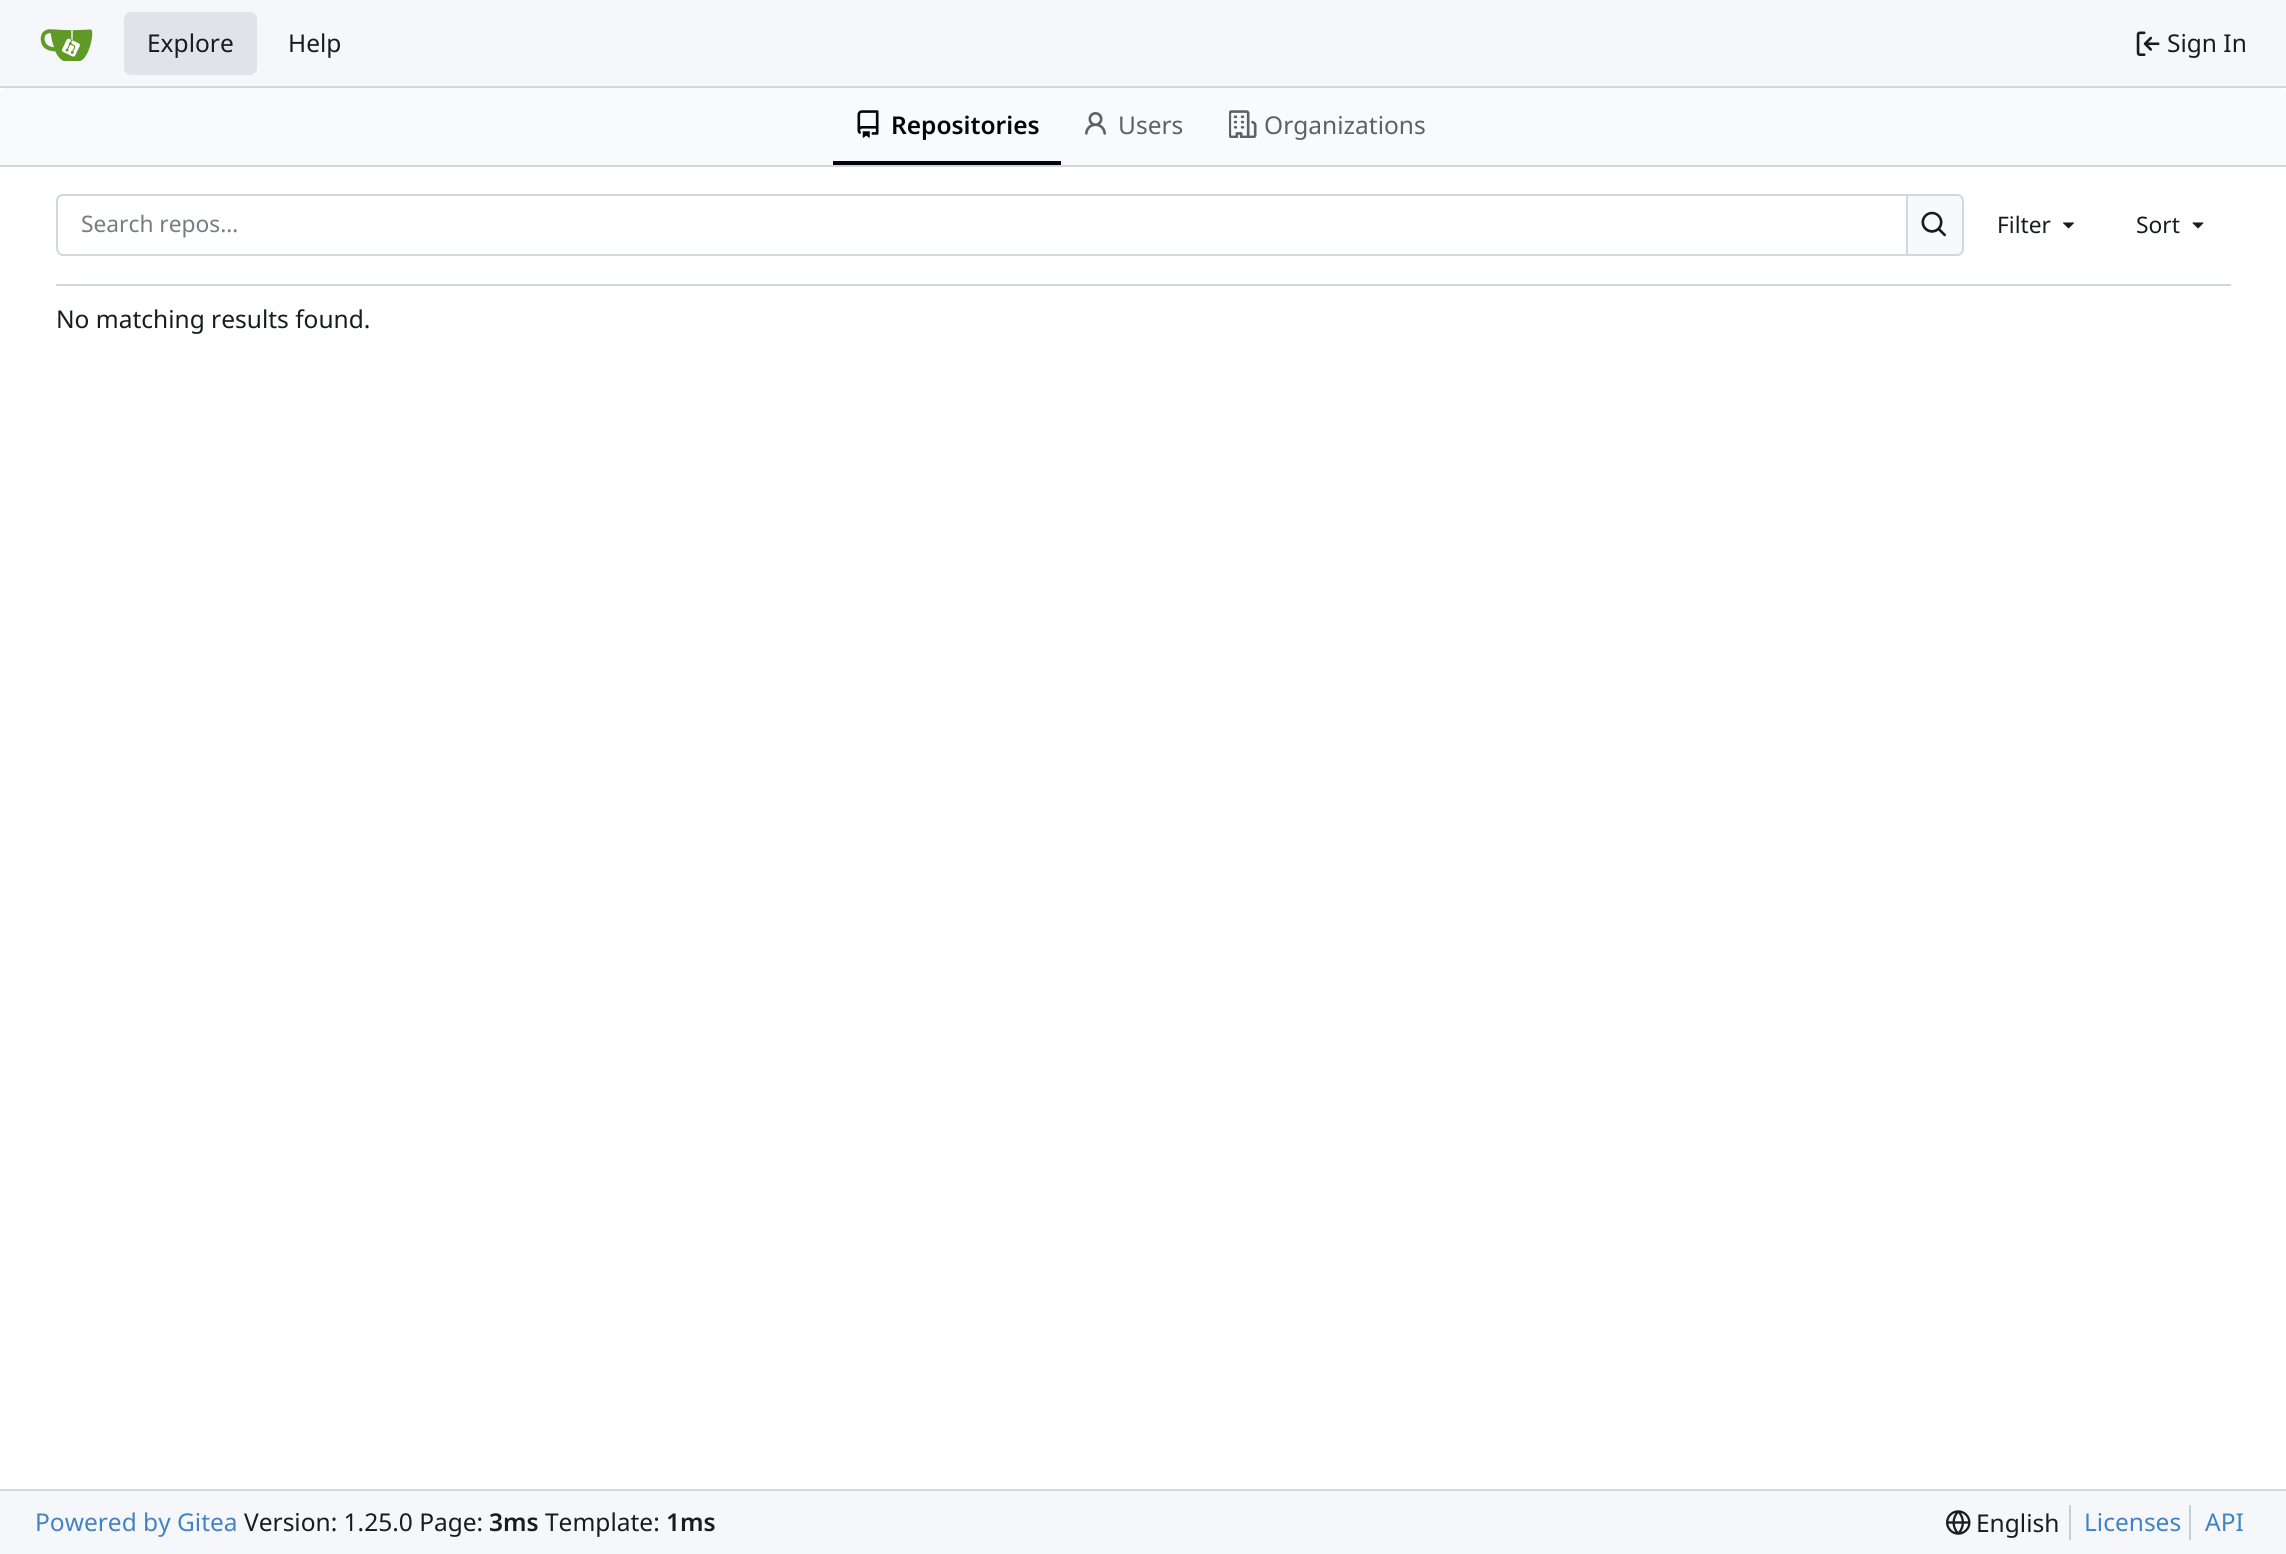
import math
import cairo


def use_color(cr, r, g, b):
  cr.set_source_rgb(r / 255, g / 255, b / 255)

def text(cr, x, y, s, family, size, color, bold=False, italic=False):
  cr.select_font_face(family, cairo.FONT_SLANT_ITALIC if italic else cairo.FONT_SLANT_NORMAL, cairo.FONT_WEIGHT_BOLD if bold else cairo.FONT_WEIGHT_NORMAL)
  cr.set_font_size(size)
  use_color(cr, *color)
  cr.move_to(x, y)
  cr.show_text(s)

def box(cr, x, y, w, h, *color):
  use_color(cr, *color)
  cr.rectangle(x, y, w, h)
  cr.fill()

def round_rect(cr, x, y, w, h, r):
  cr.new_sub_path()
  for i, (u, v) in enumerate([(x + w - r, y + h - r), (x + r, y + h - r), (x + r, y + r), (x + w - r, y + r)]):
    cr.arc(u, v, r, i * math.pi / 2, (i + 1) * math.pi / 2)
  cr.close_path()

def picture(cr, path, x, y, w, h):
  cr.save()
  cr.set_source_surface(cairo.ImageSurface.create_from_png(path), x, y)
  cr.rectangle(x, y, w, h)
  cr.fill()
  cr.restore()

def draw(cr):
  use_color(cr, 255, 255, 255)
  cr.paint()
  box(cr, 0, 0, 2286, 86, 246, 247, 250)
  box(cr, 0, 86, 2286, 2, 208, 215, 222)
  picture(cr, "img_01.png", 40, 29, 53, 32)
  use_color(cr, 226, 227, 232)
  round_rect(cr, 124, 12, 133, 63, 7)
  cr.fill()
  picture(cr, "img_02.png", 2136, 31, 24, 25)
  use_color(cr, 249, 250, 251)
  cr.new_path()
  cr.move_to(7, 88)
  cr.line_to(2280, 88)
  cr.curve_to(2284, 88, 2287, 91, 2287, 95)
  cr.line_to(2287, 166)
  cr.line_to(0, 166)
  cr.line_to(0, 95)
  cr.curve_to(0, 91, 3, 88, 7, 88)
  cr.close_path()
  cr.fill()
  box(cr, 0, 165, 2286, 2, 208, 215, 222)
  box(cr, 833, 161, 228, 4, 1, 5, 10)
  picture(cr, "img_03.png", 857, 110, 22, 28)
  picture(cr, "img_04.png", 1085, 112, 21, 23)
  picture(cr, "img_05.png", 1229, 110, 28, 28)
  use_color(cr, 208, 215, 222)
  cr.set_fill_rule(cairo.FILL_RULE_EVEN_ODD)
  cr.new_path()
  cr.move_to(63, 194)
  cr.line_to(1906, 194)
  cr.line_to(1906, 256)
  cr.line_to(63, 256)
  cr.curve_to(59, 256, 56, 252, 56, 248)
  cr.line_to(56, 201)
  cr.curve_to(56, 197, 59, 194, 63, 194)
  cr.close_path()
  cr.move_to(63, 196)
  cr.line_to(1906, 196)
  cr.line_to(1906, 254)
  cr.line_to(63, 254)
  cr.curve_to(60, 254, 58, 251, 58, 248)
  cr.line_to(58, 201)
  cr.curve_to(58, 198, 60, 196, 63, 196)
  cr.close_path()
  cr.fill()
  use_color(cr, 248, 249, 251)
  cr.new_path()
  cr.move_to(1907, 195)
  cr.line_to(1957, 195)
  cr.curve_to(1960.5, 195, 1963, 197.5, 1963, 201)
  cr.line_to(1963, 249)
  cr.curve_to(1963, 252.5, 1960.5, 255, 1957, 255)
  cr.line_to(1907, 255)
  cr.close_path()
  cr.fill_preserve()
  use_color(cr, 208, 215, 222)
  cr.stroke()
  picture(cr, "img_06.png", 1921, 211, 25, 26)
  picture(cr, "img_07.png", 2063, 222, 11, 7)
  picture(cr, "img_08.png", 2192, 222, 12, 7)
  box(cr, 56, 284, 2175, 2, 208, 215, 222)
  box(cr, 0, 1491, 2286, 63, 246, 247, 250)
  box(cr, 0, 1489, 2286, 2, 208, 215, 222)
  picture(cr, "img_09.png", 1946, 1510, 25, 25)
  box(cr, 2069, 1505, 2, 35, 199, 206, 213)
  box(cr, 2189, 1505, 2, 35, 199, 206, 213)
  text(cr, 147, 52, "Explore", "Noto Sans", 24.5, (24, 28, 33))
  text(cr, 288, 52, "Help", "Noto Sans", 24.5, (24, 28, 33))
  text(cr, 2167, 52, "Sign In", "Noto Sans", 24.5, (24, 28, 33))
  text(cr, 891, 134, "Repositories", "Noto Sans SemiBold", 24.5, (1, 5, 10))
  text(cr, 1118, 134, "Users", "Noto Sans", 24.5, (91, 97, 103))
  text(cr, 1264, 134, "Organizations", "Noto Sans", 24.5, (91, 97, 103))
  text(cr, 81, 232, "Search repos…", "Noto Sans", 22.75, (116, 124, 132))
  text(cr, 1997, 233, "Filter", "Noto Sans", 22.75, (24, 28, 33))
  text(cr, 2136, 233, "Sort", "Noto Sans", 22.75, (24, 28, 33))
  text(cr, 56, 328, "No matching results found.", "Noto Sans", 24.5, (24, 28, 33))
  text(cr, 35, 1531, "Powered by Gitea", "Noto Sans", 24.5, (65, 131, 196))
  text(cr, 244, 1531, "Version: 1.25.0 Page:", "Noto Sans", 24.5, (24, 28, 33))
  text(cr, 489, 1531, "3ms", "Noto Sans SemiBold", 24.5, (24, 28, 33))
  text(cr, 545, 1531, "Template:", "Noto Sans", 24.5, (24, 28, 33))
  text(cr, 666, 1531, "1ms", "Noto Sans SemiBold", 24.5, (24, 28, 33))
  text(cr, 1976, 1532, "English", "Noto Sans", 24.5, (24, 28, 33))
  text(cr, 2084, 1531, "Licenses", "Noto Sans", 24.5, (65, 131, 196))
  text(cr, 2205, 1531, "API", "Noto Sans", 24.5, (65, 131, 196))


surface = cairo.ImageSurface(cairo.FORMAT_RGB24, 2286, 1554)
cr = cairo.Context(surface)
options = cairo.FontOptions()
options.set_hint_metrics(cairo.HINT_METRICS_OFF)
options.set_hint_style(cairo.HINT_STYLE_NONE)
cr.set_font_options(options)
cr.set_miter_limit(4)
draw(cr)
surface.write_to_png("out.png")
